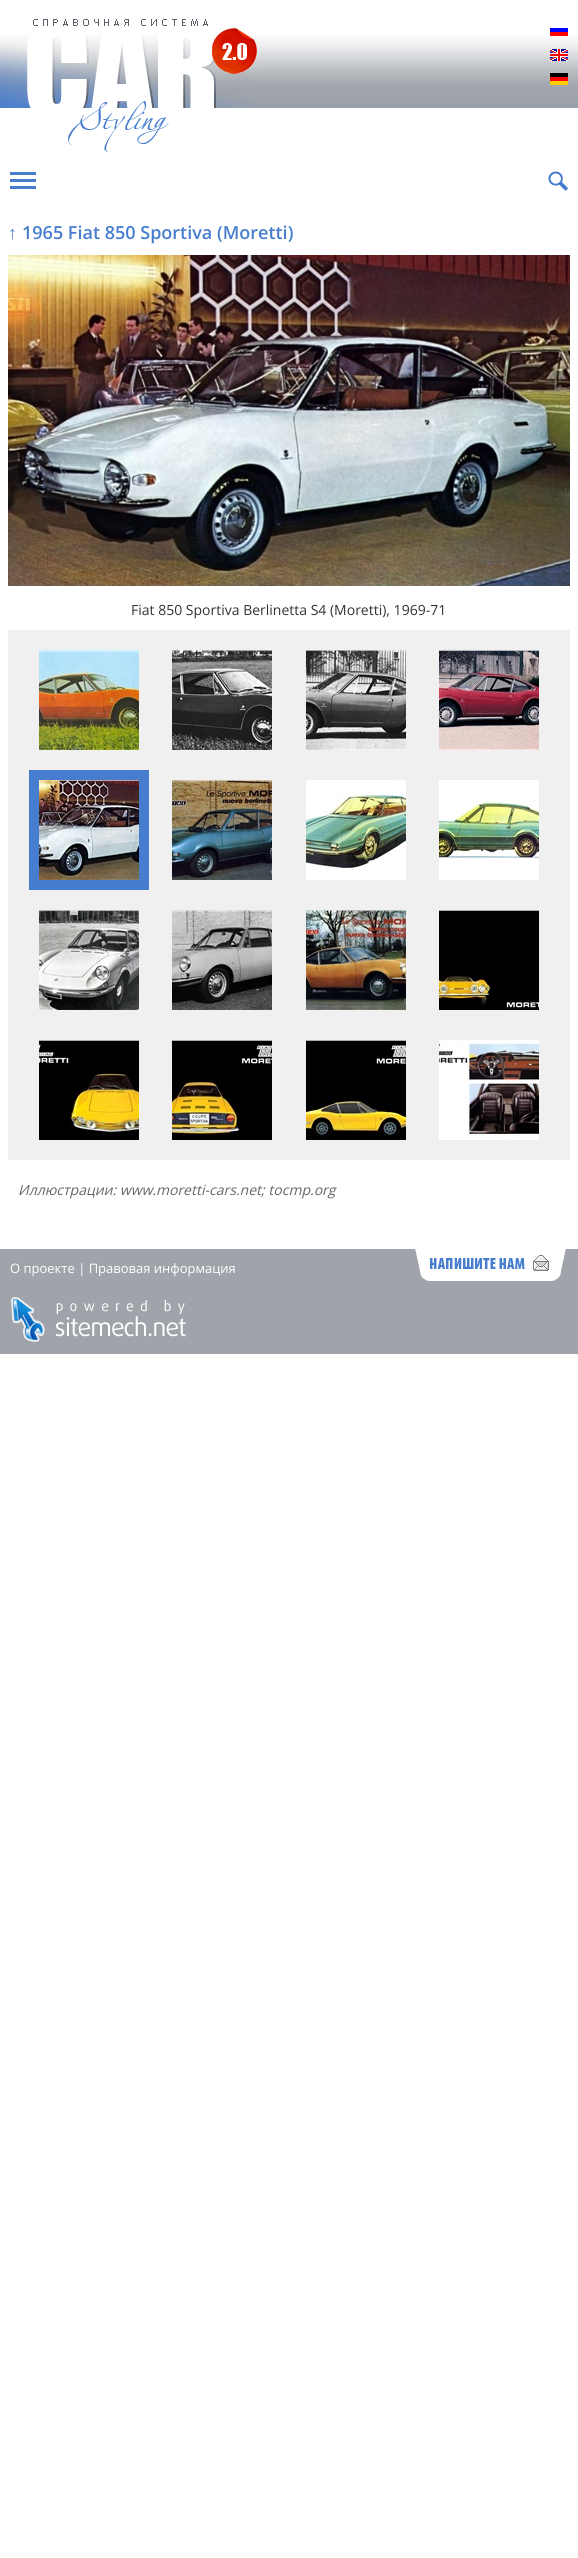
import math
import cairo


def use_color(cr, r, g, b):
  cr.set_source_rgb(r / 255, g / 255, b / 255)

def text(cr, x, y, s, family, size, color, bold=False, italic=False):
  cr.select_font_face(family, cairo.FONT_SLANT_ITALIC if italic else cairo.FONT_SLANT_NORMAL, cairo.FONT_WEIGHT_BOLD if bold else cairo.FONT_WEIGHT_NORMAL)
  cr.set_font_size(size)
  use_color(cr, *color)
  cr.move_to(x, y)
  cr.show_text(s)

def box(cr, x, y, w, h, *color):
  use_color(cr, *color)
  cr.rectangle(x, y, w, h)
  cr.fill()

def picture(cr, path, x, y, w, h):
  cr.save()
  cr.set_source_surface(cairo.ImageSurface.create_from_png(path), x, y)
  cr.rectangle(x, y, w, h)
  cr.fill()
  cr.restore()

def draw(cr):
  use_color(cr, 255, 255, 255)
  cr.paint()
  picture(cr, "img_01.png", 258, 36, 320, 72)
  picture(cr, "img_02.png", 0, 19, 258, 133)
  picture(cr, "img_03.png", 550, 28, 18, 8)
  picture(cr, "img_04.png", 550, 49, 18, 12)
  picture(cr, "img_05.png", 550, 73, 18, 12)
  picture(cr, "img_06.png", 548, 171, 20, 20)
  picture(cr, "img_07.png", 10, 172, 26, 17)
  picture(cr, "img_08.png", 8, 255, 562, 331)
  box(cr, 8, 630, 562, 530, 240, 240, 240)
  picture(cr, "img_09.png", 39, 650, 100, 100)
  picture(cr, "img_10.png", 172, 650, 100, 100)
  picture(cr, "img_11.png", 306, 650, 100, 100)
  picture(cr, "img_12.png", 439, 650, 100, 100)
  box(cr, 29, 770, 120, 120, 71, 125, 207)
  picture(cr, "img_13.png", 39, 780, 100, 100)
  picture(cr, "img_14.png", 172, 780, 100, 100)
  picture(cr, "img_15.png", 306, 780, 100, 100)
  picture(cr, "img_16.png", 439, 780, 100, 100)
  picture(cr, "img_17.png", 39, 910, 100, 100)
  picture(cr, "img_18.png", 172, 910, 100, 100)
  picture(cr, "img_19.png", 306, 910, 100, 100)
  picture(cr, "img_20.png", 439, 910, 100, 100)
  picture(cr, "img_21.png", 39, 1040, 100, 100)
  picture(cr, "img_22.png", 172, 1040, 100, 100)
  picture(cr, "img_23.png", 306, 1040, 100, 100)
  picture(cr, "img_24.png", 439, 1040, 100, 100)
  box(cr, 0, 1249, 578, 105, 160, 164, 170)
  picture(cr, "img_25.png", 11, 1297, 175, 45)
  picture(cr, "img_26.png", 415, 1249, 151, 32)
  text(cr, 8, 239, "↑", "Liberation Sans", 18, (71, 125, 207), bold=True)
  text(cr, 22, 239, "1965 Fiat 850 Sportiva (Moretti)", "Open Sans SemiBold", 18, (71, 125, 207))
  text(cr, 131, 615, "Fiat 850 Sportiva Berlinetta S4 (Moretti), 1969-71", "Open Sans", 14, (51, 51, 51))
  text(cr, 18, 1195, "Иллюстрации: www.moretti-cars.net; tocmp.org", "Open Sans", 14, (102, 102, 102), italic=True)
  text(cr, 10, 1273, "О проекте | Правовая информация", "Open Sans", 13, (255, 255, 255))


surface = cairo.ImageSurface(cairo.FORMAT_RGB24, 578, 2558)
cr = cairo.Context(surface)
options = cairo.FontOptions()
options.set_hint_metrics(cairo.HINT_METRICS_OFF)
options.set_hint_style(cairo.HINT_STYLE_NONE)
cr.set_font_options(options)
cr.set_miter_limit(4)
draw(cr)
surface.write_to_png("out.png")
